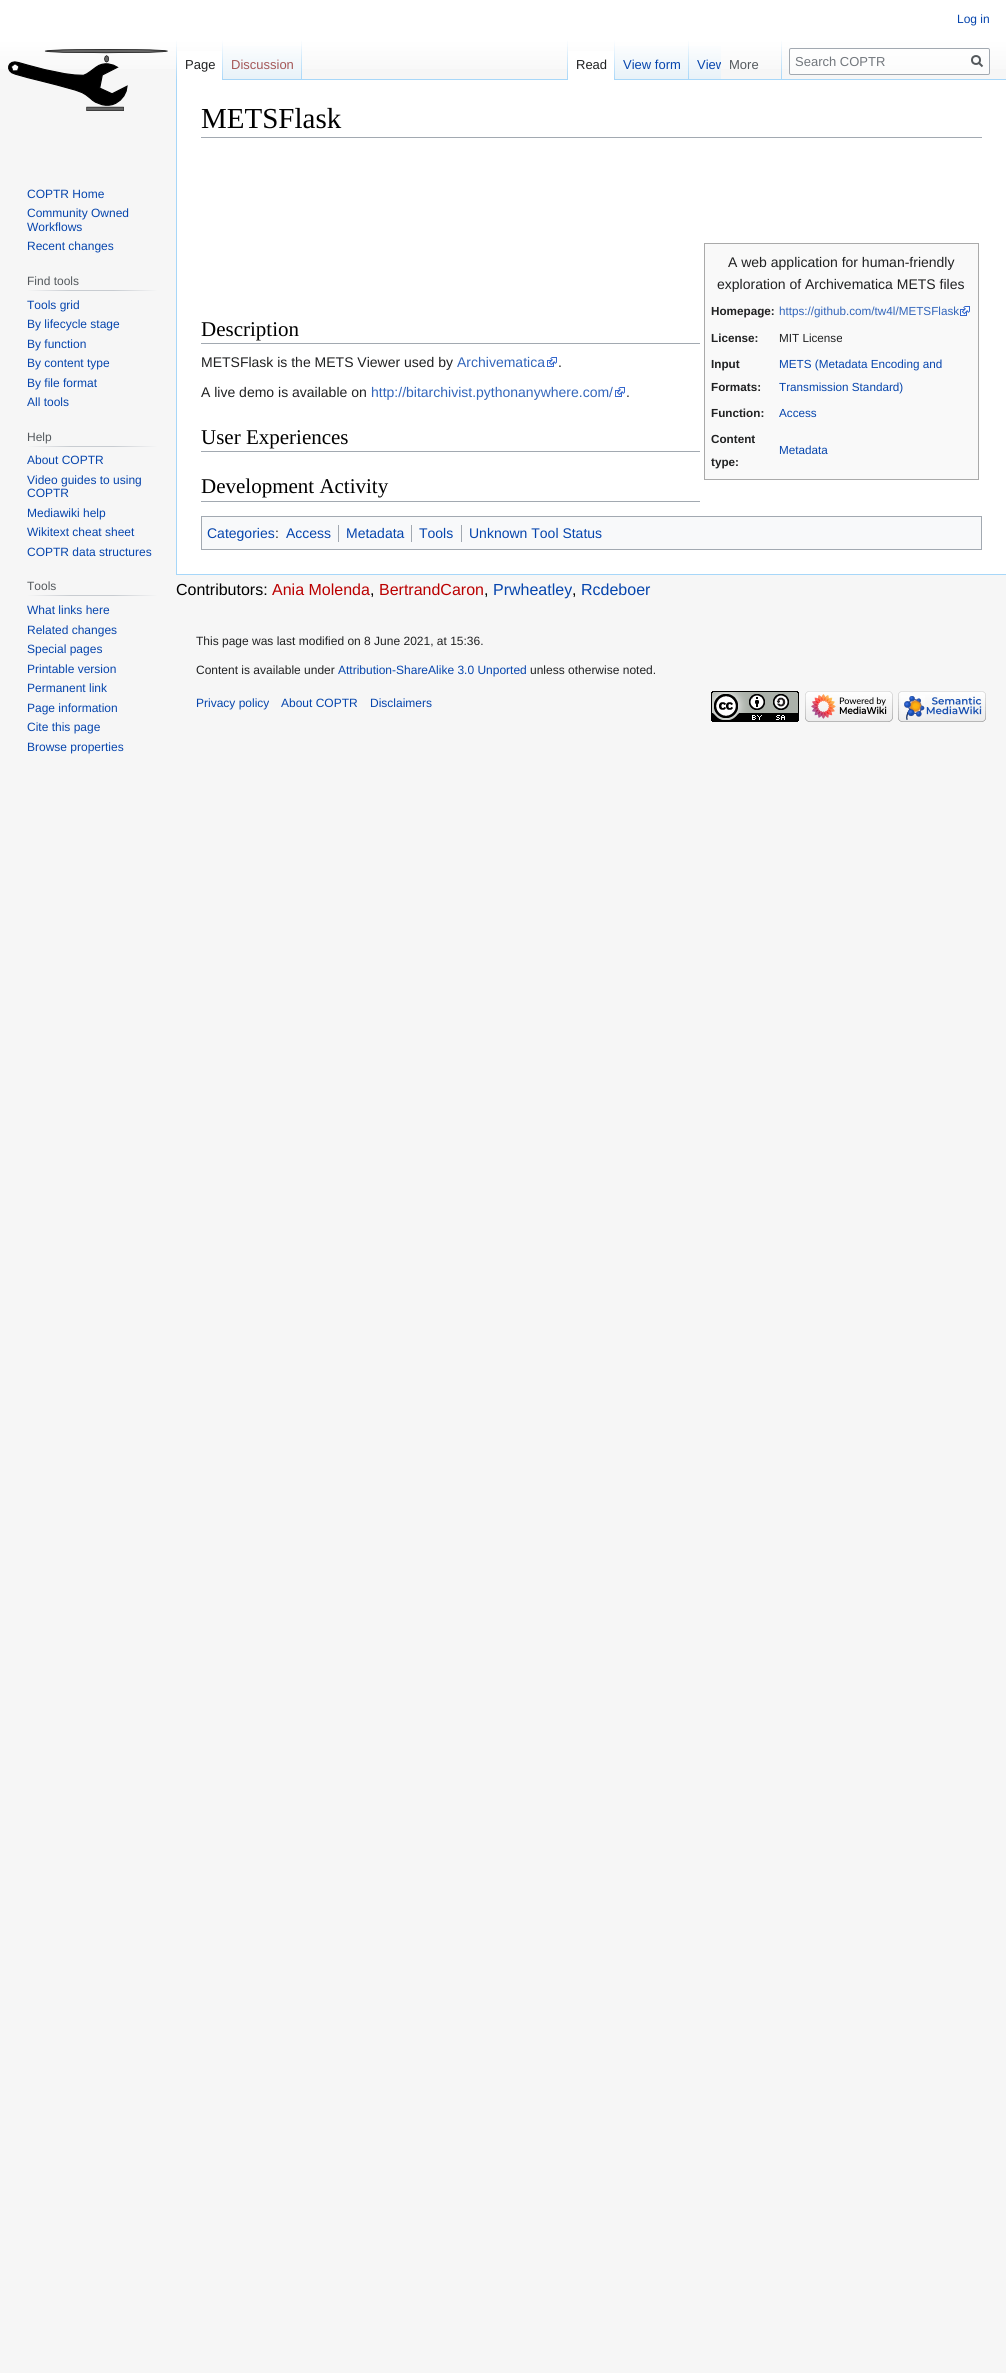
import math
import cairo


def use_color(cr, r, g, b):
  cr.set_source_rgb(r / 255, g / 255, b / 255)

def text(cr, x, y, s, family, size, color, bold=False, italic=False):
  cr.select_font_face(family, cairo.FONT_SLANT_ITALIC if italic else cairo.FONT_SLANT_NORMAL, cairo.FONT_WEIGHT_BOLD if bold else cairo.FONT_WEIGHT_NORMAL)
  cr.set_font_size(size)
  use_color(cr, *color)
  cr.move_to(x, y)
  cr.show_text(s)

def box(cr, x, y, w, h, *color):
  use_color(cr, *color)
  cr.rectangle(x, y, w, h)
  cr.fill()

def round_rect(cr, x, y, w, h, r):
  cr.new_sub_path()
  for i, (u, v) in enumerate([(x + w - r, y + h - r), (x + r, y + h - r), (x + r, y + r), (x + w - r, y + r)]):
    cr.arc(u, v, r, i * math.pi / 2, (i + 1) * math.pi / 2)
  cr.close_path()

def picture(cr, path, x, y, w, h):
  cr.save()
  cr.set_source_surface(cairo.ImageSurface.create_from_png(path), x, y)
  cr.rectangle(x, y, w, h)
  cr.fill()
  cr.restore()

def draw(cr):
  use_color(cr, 246, 246, 246)
  cr.paint()
  gradient = cairo.LinearGradient(503, 0, 503, 80)
  gradient.add_color_stop_rgba(0.5, 1, 1, 1, 1)
  gradient.add_color_stop_rgba(1, 0.965, 0.965, 0.965, 1)
  cr.set_source(gradient)
  cr.rectangle(0, 0, 1006, 69)
  cr.fill()
  box(cr, 176, 574, 830, 1, 167, 215, 249)
  box(cr, 176, 79, 1, 496, 167, 215, 249)
  gradient = cairo.LinearGradient(177, 40, 177, 80)
  gradient.add_color_stop_rgba(0, 0.655, 0.843, 0.976, 0)
  gradient.add_color_stop_rgba(1, 0.655, 0.843, 0.976, 1)
  cr.set_source(gradient)
  cr.rectangle(176, 40, 1, 40)
  cr.fill()
  box(cr, 177, 51, 45, 29, 255, 255, 255)
  gradient = cairo.LinearGradient(223, 40, 223, 80)
  gradient.add_color_stop_rgba(0, 1, 1, 1, 1)
  gradient.add_color_stop_rgba(1, 0.655, 0.843, 0.976, 1)
  cr.set_source(gradient)
  cr.rectangle(222, 40, 1, 40)
  cr.fill()
  gradient = cairo.LinearGradient(263, 80, 263, 40)
  gradient.add_color_stop_rgba(0, 0.467, 0.757, 0.965, 1)
  gradient.add_color_stop_rgba(0.03, 0.91, 0.949, 0.973, 1)
  gradient.add_color_stop_rgba(1, 1, 1, 1, 1)
  cr.set_source(gradient)
  cr.rectangle(223, 46, 79, 34)
  cr.fill()
  gradient = cairo.LinearGradient(302, 40, 302, 80)
  gradient.add_color_stop_rgba(0, 0.655, 0.843, 0.976, 0)
  gradient.add_color_stop_rgba(1, 0.655, 0.843, 0.976, 1)
  cr.set_source(gradient)
  cr.rectangle(301, 40, 1, 40)
  cr.fill()
  box(cr, 302, 79, 704, 1, 167, 215, 249)
  gradient = cairo.LinearGradient(568, 40, 568, 80)
  gradient.add_color_stop_rgba(0, 0.655, 0.843, 0.976, 0)
  gradient.add_color_stop_rgba(1, 0.655, 0.843, 0.976, 1)
  cr.set_source(gradient)
  cr.rectangle(567, 40, 1, 40)
  cr.fill()
  box(cr, 568, 51, 46, 29, 255, 255, 255)
  gradient = cairo.LinearGradient(615, 40, 615, 80)
  gradient.add_color_stop_rgba(0, 1, 1, 1, 1)
  gradient.add_color_stop_rgba(1, 0.655, 0.843, 0.976, 1)
  cr.set_source(gradient)
  cr.rectangle(614, 40, 1, 40)
  cr.fill()
  gradient = cairo.LinearGradient(652, 80, 652, 40)
  gradient.add_color_stop_rgba(0, 0.467, 0.757, 0.965, 1)
  gradient.add_color_stop_rgba(0.03, 0.91, 0.949, 0.973, 1)
  gradient.add_color_stop_rgba(1, 1, 1, 1, 1)
  cr.set_source(gradient)
  cr.rectangle(615, 46, 74, 33)
  cr.fill()
  gradient = cairo.LinearGradient(689, 40, 689, 80)
  gradient.add_color_stop_rgba(0, 0.655, 0.843, 0.976, 0)
  gradient.add_color_stop_rgba(1, 0.655, 0.843, 0.976, 1)
  cr.set_source(gradient)
  cr.rectangle(688, 40, 1, 40)
  cr.fill()
  gradient = cairo.LinearGradient(705, 80, 705, 40)
  gradient.add_color_stop_rgba(0, 0.467, 0.757, 0.965, 1)
  gradient.add_color_stop_rgba(0.03, 0.91, 0.949, 0.973, 1)
  gradient.add_color_stop_rgba(1, 1, 1, 1, 1)
  cr.set_source(gradient)
  cr.rectangle(689, 46, 32, 33)
  cr.fill()
  gradient = cairo.LinearGradient(782, 40, 782, 80)
  gradient.add_color_stop_rgba(0, 0.655, 0.843, 0.976, 0)
  gradient.add_color_stop_rgba(1, 0.655, 0.843, 0.976, 1)
  cr.set_source(gradient)
  cr.rectangle(781, 40, 1, 40)
  cr.fill()
  cr.set_source_rgba(1, 1, 1, 0.5)
  round_rect(cr, 789.5, 48.5, 200, 26, 1.5)
  cr.fill_preserve()
  use_color(cr, 162, 169, 177)
  cr.set_line_width(1)
  cr.stroke()
  cr.new_path()
  cr.move_to(982.5, 66.5)
  cr.line_to(978.5, 62.5)
  use_color(cr, 84, 89, 93)
  cr.set_line_width(2)
  cr.stroke()
  cr.arc(976, 60, 4, 0, 2 * math.pi)
  cr.stroke()
  picture(cr, "img_01.png", 8, 49, 160, 62)
  gradient = cairo.LinearGradient(27, 291, 158, 291)
  gradient.add_color_stop_rgba(0, 0.965, 0.965, 0.965, 1)
  gradient.add_color_stop_rgba(0.33, 0.784, 0.8, 0.82, 1)
  gradient.add_color_stop_rgba(0.66, 0.784, 0.8, 0.82, 1)
  gradient.add_color_stop_rgba(1, 0.965, 0.965, 0.965, 1)
  cr.set_source(gradient)
  cr.rectangle(27, 290, 131, 1)
  cr.fill()
  gradient = cairo.LinearGradient(27, 447, 158, 447)
  gradient.add_color_stop_rgba(0, 0.965, 0.965, 0.965, 1)
  gradient.add_color_stop_rgba(0.33, 0.784, 0.8, 0.82, 1)
  gradient.add_color_stop_rgba(0.66, 0.784, 0.8, 0.82, 1)
  gradient.add_color_stop_rgba(1, 0.965, 0.965, 0.965, 1)
  cr.set_source(gradient)
  cr.rectangle(27, 446, 131, 1)
  cr.fill()
  gradient = cairo.LinearGradient(27, 596, 158, 596)
  gradient.add_color_stop_rgba(0, 0.965, 0.965, 0.965, 1)
  gradient.add_color_stop_rgba(0.33, 0.784, 0.8, 0.82, 1)
  gradient.add_color_stop_rgba(0.66, 0.784, 0.8, 0.82, 1)
  gradient.add_color_stop_rgba(1, 0.965, 0.965, 0.965, 1)
  cr.set_source(gradient)
  cr.rectangle(27, 595, 131, 1)
  cr.fill()
  box(cr, 177, 80, 829, 494, 255, 255, 255)
  box(cr, 201, 137, 781, 1, 162, 169, 177)
  box(cr, 201, 343, 499, 1, 162, 169, 177)
  use_color(cr, 249, 249, 249)
  cr.rectangle(704.5, 243.5, 274, 236)
  cr.fill_preserve()
  use_color(cr, 170, 170, 170)
  cr.set_line_width(1)
  cr.stroke()
  picture(cr, "img_02.png", 960, 306, 10, 10)
  picture(cr, "img_03.png", 547, 357, 10, 10)
  picture(cr, "img_03.png", 615, 387, 10, 10)
  box(cr, 201, 451, 499, 1, 162, 169, 177)
  box(cr, 201, 501, 499, 1, 162, 169, 177)
  use_color(cr, 248, 249, 250)
  cr.rectangle(201.5, 516.5, 780, 33)
  cr.fill_preserve()
  use_color(cr, 162, 169, 177)
  cr.stroke()
  box(cr, 338, 525, 1, 17, 162, 169, 177)
  box(cr, 411, 525, 1, 17, 162, 169, 177)
  box(cr, 461, 525, 1, 17, 162, 169, 177)
  picture(cr, "img_04.png", 711, 691, 88, 31)
  picture(cr, "img_05.png", 805, 691, 88, 31)
  picture(cr, "img_06.png", 898, 691, 88, 31)
  text(cr, 957, 23, "Log in", "Liberation Sans", 12, (6, 69, 173))
  text(cr, 185, 69, "Page", "Liberation Sans", 13, (32, 33, 34))
  text(cr, 231, 69, "Discussion", "Liberation Sans", 13, (165, 88, 88))
  text(cr, 576, 69, "Read", "Liberation Sans", 13, (32, 33, 34))
  text(cr, 623, 69, "View form", "Liberation Sans", 13, (6, 69, 173))
  cr.save()
  cr.rectangle(689, 40, 32, 40)
  cr.clip()
  text(cr, 697, 69, "View", "Liberation Sans", 13, (6, 69, 173))
  cr.restore()
  text(cr, 729, 69, "More", "Liberation Sans", 13, (84, 89, 93))
  text(cr, 795, 66, "Search COPTR", "Liberation Sans", 13, (114, 119, 125))
  text(cr, 27, 198, "COPTR Home", "Liberation Sans", 12, (6, 69, 173))
  text(cr, 27, 217, "Community Owned", "Liberation Sans", 12, (6, 69, 173))
  text(cr, 27, 231, "Workflows", "Liberation Sans", 12, (6, 69, 173))
  text(cr, 27, 250, "Recent changes", "Liberation Sans", 12, (6, 69, 173))
  text(cr, 27, 285, "Find tools", "Liberation Sans", 12, (84, 89, 93))
  text(cr, 27, 309, "Tools grid", "Liberation Sans", 12, (6, 69, 173))
  text(cr, 27, 328, "By lifecycle stage", "Liberation Sans", 12, (6, 69, 173))
  text(cr, 27, 348, "By function", "Liberation Sans", 12, (6, 69, 173))
  text(cr, 27, 367, "By content type", "Liberation Sans", 12, (6, 69, 173))
  text(cr, 27, 387, "By file format", "Liberation Sans", 12, (6, 69, 173))
  text(cr, 27, 406, "All tools", "Liberation Sans", 12, (6, 69, 173))
  text(cr, 27, 441, "Help", "Liberation Sans", 12, (84, 89, 93))
  text(cr, 27, 464, "About COPTR", "Liberation Sans", 12, (6, 69, 173))
  text(cr, 27, 484, "Video guides to using", "Liberation Sans", 12, (6, 69, 173))
  text(cr, 27, 497, "COPTR", "Liberation Sans", 12, (6, 69, 173))
  text(cr, 27, 517, "Mediawiki help", "Liberation Sans", 12, (6, 69, 173))
  text(cr, 27, 536, "Wikitext cheat sheet", "Liberation Sans", 12, (6, 69, 173))
  text(cr, 27, 556, "COPTR data structures", "Liberation Sans", 12, (6, 69, 173))
  text(cr, 27, 590, "Tools", "Liberation Sans", 12, (84, 89, 93))
  text(cr, 27, 614, "What links here", "Liberation Sans", 12, (6, 69, 173))
  text(cr, 27, 634, "Related changes", "Liberation Sans", 12, (6, 69, 173))
  text(cr, 27, 653, "Special pages", "Liberation Sans", 12, (6, 69, 173))
  text(cr, 27, 673, "Printable version", "Liberation Sans", 12, (6, 69, 173))
  text(cr, 27, 692, "Permanent link", "Liberation Sans", 12, (6, 69, 173))
  text(cr, 27, 712, "Page information", "Liberation Sans", 12, (6, 69, 173))
  text(cr, 27, 731, "Cite this page", "Liberation Sans", 12, (6, 69, 173))
  text(cr, 27, 751, "Browse properties", "Liberation Sans", 12, (6, 69, 173))
  text(cr, 201, 128, "METSFlask", "Liberation Serif", 29, (0, 0, 0))
  text(cr, 201, 336, "Description", "Liberation Serif", 21, (0, 0, 0))
  text(cr, 728, 267, "A web application for human-friendly", "Liberation Sans", 14, (32, 33, 34))
  text(cr, 717, 289, "exploration of Archivematica METS files", "Liberation Sans", 14, (32, 33, 34))
  text(cr, 711, 315, "Homepage:", "Liberation Sans", 11.7, (32, 33, 34), bold=True)
  text(cr, 779, 315, "https://github.com/tw4l/METSFlask", "Liberation Sans", 11.7, (51, 102, 187))
  text(cr, 711, 342, "License:", "Liberation Sans", 11.7, (32, 33, 34), bold=True)
  text(cr, 779, 342, "MIT License", "Liberation Sans", 11.7, (32, 33, 34))
  text(cr, 711, 368, "Input", "Liberation Sans", 11.7, (32, 33, 34), bold=True)
  text(cr, 711, 391, "Formats:", "Liberation Sans", 11.7, (32, 33, 34), bold=True)
  text(cr, 779, 368, "METS (Metadata Encoding and", "Liberation Sans", 11.7, (6, 69, 173))
  text(cr, 779, 391, "Transmission Standard)", "Liberation Sans", 11.7, (6, 69, 173))
  text(cr, 711, 417, "Function:", "Liberation Sans", 11.7, (32, 33, 34), bold=True)
  text(cr, 779, 417, "Access", "Liberation Sans", 11.7, (6, 69, 173))
  text(cr, 711, 443, "Content", "Liberation Sans", 11.7, (32, 33, 34), bold=True)
  text(cr, 711, 466, "type:", "Liberation Sans", 11.7, (32, 33, 34), bold=True)
  text(cr, 779, 454, "Metadata", "Liberation Sans", 11.7, (6, 69, 173))
  text(cr, 201, 367, "METSFlask is the METS Viewer used by", "Liberation Sans", 14, (32, 33, 34))
  text(cr, 457, 367, "Archivematica", "Liberation Sans", 14, (51, 102, 187))
  text(cr, 558, 367, ".", "Liberation Sans", 14, (32, 33, 34))
  text(cr, 201, 397, "A live demo is available on", "Liberation Sans", 14, (32, 33, 34))
  text(cr, 371, 397, "http://bitarchivist.pythonanywhere.com/", "Liberation Sans", 14, (51, 102, 187))
  text(cr, 626, 397, ".", "Liberation Sans", 14, (32, 33, 34))
  text(cr, 201, 444, "User Experiences", "Liberation Serif", 21, (0, 0, 0))
  text(cr, 201, 493, "Development Activity", "Liberation Serif", 21, (0, 0, 0))
  text(cr, 207, 538, "Categories", "Liberation Sans", 14, (6, 69, 173))
  text(cr, 275, 538, ":", "Liberation Sans", 14, (32, 33, 34))
  text(cr, 286, 538, "Access", "Liberation Sans", 14, (6, 69, 173))
  text(cr, 346, 538, "Metadata", "Liberation Sans", 14, (6, 69, 173))
  text(cr, 419, 538, "Tools", "Liberation Sans", 14, (6, 69, 173))
  text(cr, 469, 538, "Unknown Tool Status", "Liberation Sans", 14, (6, 69, 173))
  text(cr, 176, 595, "Contributors:", "Liberation Sans", 16, (0, 0, 0))
  text(cr, 272, 595, "Ania Molenda", "Liberation Sans", 16, (186, 0, 0))
  text(cr, 370, 595, ",", "Liberation Sans", 16, (0, 0, 0))
  text(cr, 379, 595, "BertrandCaron", "Liberation Sans", 16, (186, 0, 0))
  text(cr, 484, 595, ",", "Liberation Sans", 16, (0, 0, 0))
  text(cr, 493, 595, "Prwheatley", "Liberation Sans", 16, (6, 69, 173))
  text(cr, 572, 595, ",", "Liberation Sans", 16, (0, 0, 0))
  text(cr, 581, 595, "Rcdeboer", "Liberation Sans", 16, (6, 69, 173))
  text(cr, 196, 645, "This page was last modified on 8 June 2021, at 15:36.", "Liberation Sans", 12, (32, 33, 34))
  text(cr, 196, 674, "Content is available under", "Liberation Sans", 12, (32, 33, 34))
  text(cr, 338, 674, "Attribution-ShareAlike 3.0 Unported", "Liberation Sans", 12, (6, 69, 173))
  text(cr, 530, 674, "unless otherwise noted.", "Liberation Sans", 12, (32, 33, 34))
  text(cr, 196, 707, "Privacy policy", "Liberation Sans", 12, (6, 69, 173))
  text(cr, 281, 707, "About COPTR", "Liberation Sans", 12, (6, 69, 173))
  text(cr, 370, 707, "Disclaimers", "Liberation Sans", 12, (6, 69, 173))


surface = cairo.ImageSurface(cairo.FORMAT_RGB24, 1006, 2373)
cr = cairo.Context(surface)
options = cairo.FontOptions()
options.set_hint_metrics(cairo.HINT_METRICS_OFF)
options.set_hint_style(cairo.HINT_STYLE_NONE)
cr.set_font_options(options)
cr.set_miter_limit(4)
draw(cr)
surface.write_to_png("out.png")
